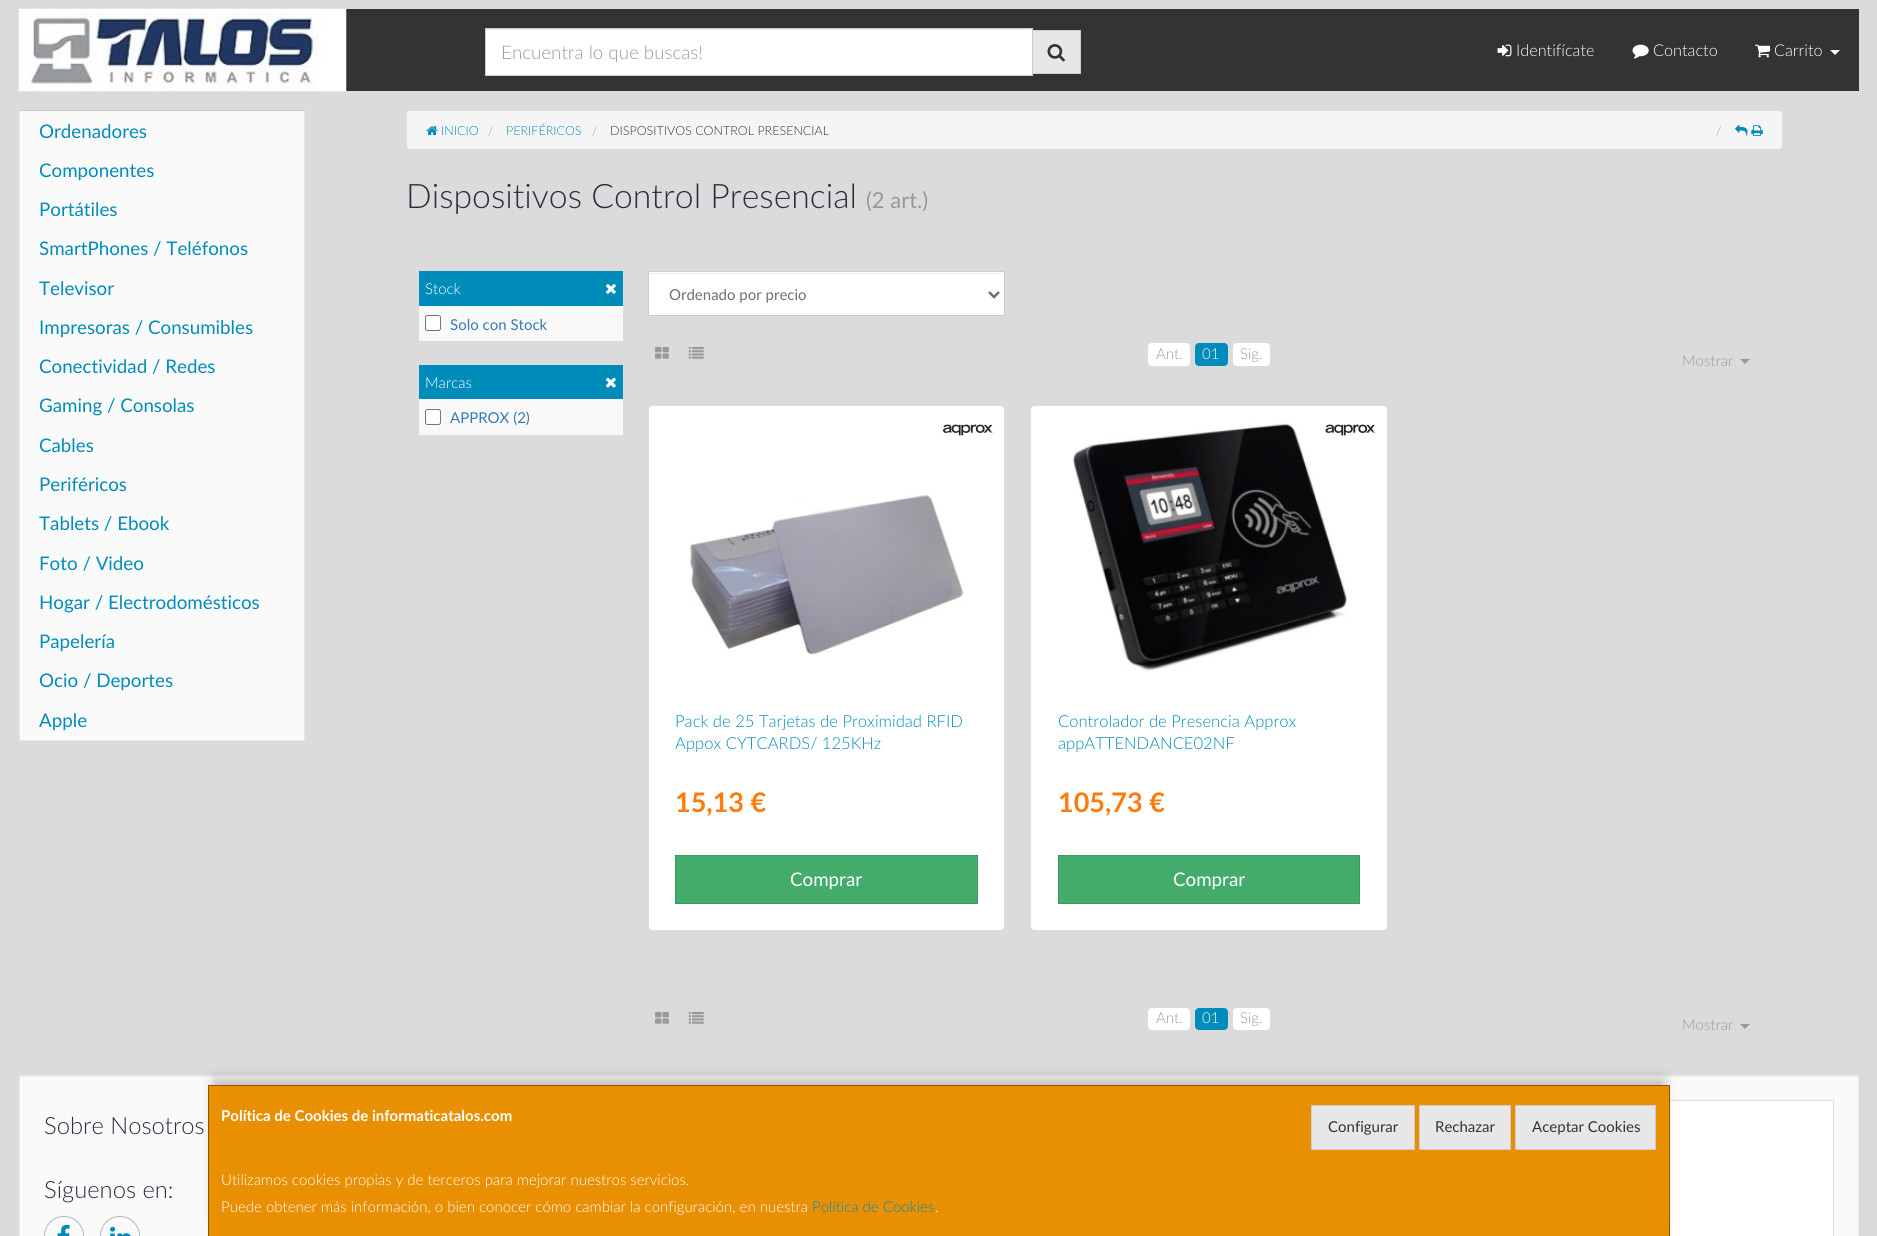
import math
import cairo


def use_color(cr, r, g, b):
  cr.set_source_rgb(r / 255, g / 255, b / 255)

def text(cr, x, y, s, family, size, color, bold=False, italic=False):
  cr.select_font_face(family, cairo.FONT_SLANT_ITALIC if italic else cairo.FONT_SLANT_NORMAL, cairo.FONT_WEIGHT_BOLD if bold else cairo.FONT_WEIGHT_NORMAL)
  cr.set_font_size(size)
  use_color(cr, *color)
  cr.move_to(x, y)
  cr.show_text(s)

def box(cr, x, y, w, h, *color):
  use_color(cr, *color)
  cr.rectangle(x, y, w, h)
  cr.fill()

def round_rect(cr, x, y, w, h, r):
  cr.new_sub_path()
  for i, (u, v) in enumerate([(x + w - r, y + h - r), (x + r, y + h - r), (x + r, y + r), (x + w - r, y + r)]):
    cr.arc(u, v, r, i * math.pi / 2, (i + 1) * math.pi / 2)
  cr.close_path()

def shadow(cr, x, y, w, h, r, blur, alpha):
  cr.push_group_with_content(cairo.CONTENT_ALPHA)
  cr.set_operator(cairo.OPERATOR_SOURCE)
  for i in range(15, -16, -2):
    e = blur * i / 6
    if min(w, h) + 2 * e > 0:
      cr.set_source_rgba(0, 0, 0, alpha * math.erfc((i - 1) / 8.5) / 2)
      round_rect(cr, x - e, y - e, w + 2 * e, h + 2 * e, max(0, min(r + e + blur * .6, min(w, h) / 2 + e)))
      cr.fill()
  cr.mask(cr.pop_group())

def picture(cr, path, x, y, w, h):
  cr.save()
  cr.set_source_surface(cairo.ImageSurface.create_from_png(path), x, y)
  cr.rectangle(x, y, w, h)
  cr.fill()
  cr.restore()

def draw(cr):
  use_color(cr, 219, 219, 219)
  cr.paint()
  box(cr, 346, 9, 1513, 82, 51, 51, 51)
  picture(cr, "img_01.png", 18, 8, 329, 84)
  box(cr, 1033, 31, 47, 42, 231, 231, 231)
  cr.rectangle(1031.5, 30.5, 49, 43)
  use_color(cr, 204, 204, 204)
  cr.set_line_width(1)
  cr.stroke()
  box(cr, 486, 29, 546, 46, 255, 255, 255)
  box(cr, 486, 29, 545, 1, 236, 236, 236)
  cr.rectangle(485.5, 28.5, 547, 47)
  use_color(cr, 204, 204, 204)
  cr.stroke()
  picture(cr, "img_02.png", 1047, 44, 18, 18)
  picture(cr, "img_03.png", 1497, 44, 15, 13)
  picture(cr, "img_04.png", 1632, 44, 17, 15)
  picture(cr, "img_05.png", 1755, 44, 16, 14)
  use_color(cr, 255, 255, 255)
  cr.new_path()
  cr.move_to(1830, 50)
  cr.line_to(1840, 50)
  cr.line_to(1835, 55)
  cr.close_path()
  cr.fill()
  box(cr, 19, 110, 286, 630, 250, 250, 250)
  use_color(cr, 200, 200, 200)
  cr.new_path()
  cr.move_to(19, 110)
  cr.line_to(305, 110)
  cr.line_to(304, 111)
  cr.line_to(20, 111)
  cr.close_path()
  cr.fill()
  use_color(cr, 232, 232, 232)
  cr.new_path()
  cr.move_to(305, 110)
  cr.line_to(305, 741)
  cr.line_to(304, 740)
  cr.line_to(304, 111)
  cr.close_path()
  cr.fill()
  box(cr, 19, 740, 286, 1, 232, 232, 232)
  cr.new_path()
  cr.move_to(19, 741)
  cr.line_to(19, 110)
  cr.line_to(20, 111)
  cr.line_to(20, 740)
  cr.close_path()
  cr.fill()
  use_color(cr, 245, 245, 245)
  round_rect(cr, 406.5, 110.5, 1376, 39, 3.5)
  cr.fill_preserve()
  use_color(cr, 221, 221, 221)
  cr.stroke()
  picture(cr, "img_06.png", 426, 126, 12, 9)
  picture(cr, "img_07.png", 1735, 124, 13, 12)
  picture(cr, "img_08.png", 1751, 125, 12, 11)
  box(cr, 419, 271, 204, 35, 0, 140, 186)
  picture(cr, "img_09.png", 606, 284, 10, 10)
  box(cr, 419, 306, 204, 35, 249, 249, 249)
  use_color(cr, 255, 255, 255)
  round_rect(cr, 425.5, 315.5, 15, 15, 2)
  cr.fill_preserve()
  use_color(cr, 118, 118, 118)
  cr.stroke()
  box(cr, 419, 365, 204, 34, 0, 140, 186)
  picture(cr, "img_10.png", 606, 377, 10, 11)
  box(cr, 419, 399, 204, 36, 249, 249, 249)
  use_color(cr, 255, 255, 255)
  round_rect(cr, 425.5, 409.5, 15, 15, 2)
  cr.fill_preserve()
  use_color(cr, 118, 118, 118)
  cr.stroke()
  box(cr, 649, 272, 355, 43, 255, 255, 255)
  box(cr, 649, 273, 355, 1, 236, 236, 236)
  cr.rectangle(648.5, 271.5, 356, 44)
  use_color(cr, 204, 204, 204)
  cr.stroke()
  cr.new_path()
  cr.move_to(989, 292)
  cr.line_to(994, 297)
  cr.line_to(999, 292)
  use_color(cr, 111, 111, 111)
  cr.set_line_width(2.5)
  cr.stroke()
  picture(cr, "img_11.png", 655, 346, 14, 13)
  picture(cr, "img_12.png", 688, 346, 16, 13)
  use_color(cr, 255, 255, 255)
  round_rect(cr, 1148, 343, 42, 23, 4)
  cr.fill()
  use_color(cr, 0, 140, 186)
  round_rect(cr, 1195, 343, 33, 23, 4)
  cr.fill()
  use_color(cr, 255, 255, 255)
  round_rect(cr, 1233, 343, 37, 23, 4)
  cr.fill()
  use_color(cr, 153, 153, 153)
  cr.new_path()
  cr.move_to(1740, 359)
  cr.line_to(1750, 359)
  cr.line_to(1745, 364)
  cr.close_path()
  cr.fill()
  use_color(cr, 255, 255, 255)
  round_rect(cr, 648.5, 405.5, 356, 525, 4.5)
  cr.fill_preserve()
  use_color(cr, 221, 221, 221)
  cr.set_line_width(1)
  cr.stroke()
  picture(cr, "img_13.png", 943, 424, 50, 12)
  picture(cr, "img_14.png", 689, 495, 275, 160)
  use_color(cr, 67, 172, 106)
  cr.rectangle(675.5, 855.5, 302, 48)
  cr.fill_preserve()
  use_color(cr, 60, 154, 95)
  cr.stroke()
  use_color(cr, 255, 255, 255)
  round_rect(cr, 1030.5, 405.5, 357, 525, 4.5)
  cr.fill_preserve()
  use_color(cr, 221, 221, 221)
  cr.stroke()
  picture(cr, "img_15.png", 1073, 423, 274, 248)
  picture(cr, "img_16.png", 1325, 424, 50, 12)
  use_color(cr, 67, 172, 106)
  cr.rectangle(1058.5, 855.5, 301, 48)
  cr.fill_preserve()
  use_color(cr, 60, 154, 95)
  cr.stroke()
  picture(cr, "img_11.png", 655, 1011, 14, 13)
  picture(cr, "img_12.png", 688, 1011, 16, 13)
  use_color(cr, 255, 255, 255)
  round_rect(cr, 1148, 1008, 42, 22, 4)
  cr.fill()
  use_color(cr, 0, 140, 186)
  round_rect(cr, 1195, 1008, 33, 22, 4)
  cr.fill()
  use_color(cr, 255, 255, 255)
  round_rect(cr, 1233, 1008, 37, 22, 4)
  cr.fill()
  use_color(cr, 153, 153, 153)
  cr.new_path()
  cr.move_to(1740, 1024)
  cr.line_to(1750, 1024)
  cr.line_to(1745, 1029)
  cr.close_path()
  cr.fill()
  box(cr, 20, 1077, 1838, 159, 250, 250, 250)
  box(cr, 20, 1076, 1838, 1, 238, 238, 238)
  cr.rectangle(19.5, 1075.5, 1839, 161)
  use_color(cr, 232, 232, 232)
  cr.stroke()
  cr.arc(64, 1236, 19.5, 0, 2 * math.pi)
  use_color(cr, 181, 181, 181)
  cr.stroke()
  picture(cr, "img_17.png", 57, 1224, 13, 12)
  cr.arc(120, 1236, 19.5, 0, 2 * math.pi)
  cr.stroke()
  picture(cr, "img_18.png", 110, 1226, 21, 10)
  box(cr, 1670, 1101, 163, 135, 255, 255, 255)
  cr.rectangle(1254.5, 1100.5, 579, 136)
  use_color(cr, 221, 221, 221)
  cr.stroke()
  use_color(cr, 0, 0, 0)
  shadow(cr, 214, 1079, 1450, 139, 0, 6, 0.25)
  box(cr, 208, 1085, 1462, 151, 233, 144, 2)
  use_color(cr, 140, 86, 1)
  cr.new_path()
  cr.move_to(208, 1085)
  cr.line_to(1670, 1085)
  cr.line_to(1669, 1086)
  cr.line_to(209, 1086)
  cr.close_path()
  cr.fill()
  cr.set_source_rgba(0, 0, 0, 0.4)
  cr.new_path()
  cr.move_to(1670, 1085)
  cr.line_to(1670, 1236)
  cr.line_to(1669, 1236)
  cr.line_to(1669, 1086)
  cr.close_path()
  cr.fill()
  cr.new_path()
  cr.move_to(208, 1236)
  cr.line_to(208, 1085)
  cr.line_to(209, 1086)
  cr.line_to(209, 1236)
  cr.close_path()
  cr.fill()
  use_color(cr, 231, 231, 231)
  cr.rectangle(1311.5, 1105.5, 103, 44)
  cr.fill_preserve()
  use_color(cr, 204, 204, 204)
  cr.stroke()
  use_color(cr, 231, 231, 231)
  cr.rectangle(1419.5, 1105.5, 91, 44)
  cr.fill_preserve()
  use_color(cr, 204, 204, 204)
  cr.stroke()
  use_color(cr, 231, 231, 231)
  cr.rectangle(1515.5, 1105.5, 140, 44)
  cr.fill_preserve()
  use_color(cr, 204, 204, 204)
  cr.stroke()
  text(cr, 501, 59, "Encuentra lo que buscas!", "Lato Light", 18.75, (153, 153, 153))
  text(cr, 1516, 56, "Identifícate", "Lato Light", 16.25, (255, 255, 255))
  text(cr, 1653, 56, "Contacto", "Lato Light", 16.25, (255, 255, 255))
  text(cr, 1774, 56, "Carrito", "Lato Light", 16.25, (255, 255, 255))
  text(cr, 39, 138, "Ordenadores", "Lato", 18.75, (0, 140, 186))
  text(cr, 39, 177, "Componentes", "Lato", 18.75, (0, 140, 186))
  text(cr, 39, 216, "Portátiles", "Lato", 18.75, (0, 140, 186))
  text(cr, 39, 255, "SmartPhones / Teléfonos", "Lato", 18.75, (0, 140, 186))
  text(cr, 39, 295, "Televisor", "Lato", 18.75, (0, 140, 186))
  text(cr, 39, 334, "Impresoras / Consumibles", "Lato", 18.75, (0, 140, 186))
  text(cr, 39, 373, "Conectividad / Redes", "Lato", 18.75, (0, 140, 186))
  text(cr, 39, 412, "Gaming / Consolas", "Lato", 18.75, (0, 140, 186))
  text(cr, 39, 452, "Cables", "Lato", 18.75, (0, 140, 186))
  text(cr, 39, 491, "Periféricos", "Lato", 18.75, (0, 140, 186))
  text(cr, 39, 530, "Tablets / Ebook", "Lato", 18.75, (0, 140, 186))
  text(cr, 39, 570, "Foto / Video", "Lato", 18.75, (0, 140, 186))
  text(cr, 39, 609, "Hogar / Electrodomésticos", "Lato", 18.75, (0, 140, 186))
  text(cr, 39, 648, "Papelería", "Lato", 18.75, (0, 140, 186))
  text(cr, 39, 687, "Ocio / Deportes", "Lato", 18.75, (0, 140, 186))
  text(cr, 39, 727, "Apple", "Lato", 18.75, (0, 140, 186))
  text(cr, 441, 135, "INICIO", "Lato Light", 12.5, (0, 140, 186))
  text(cr, 488, 135, "/", "Lato Light", 12.5, (153, 153, 153))
  text(cr, 506, 135, "PERIFÉRICOS", "Lato Light", 12.5, (0, 140, 186))
  text(cr, 592, 135, "/", "Lato Light", 12.5, (153, 153, 153))
  text(cr, 610, 135, "DISPOSITIVOS CONTROL PRESENCIAL", "Lato Light", 12.5, (51, 51, 51))
  text(cr, 1716, 135, "/", "Lato Light", 12.5, (153, 153, 153))
  text(cr, 406, 208, "Dispositivos Control Presencial", "Lato Light", 33.75, (40, 46, 61))
  text(cr, 866, 208, "(2 art.)", "Lato", 22, (153, 153, 153))
  text(cr, 425, 294, "Stock", "Lato Light", 15, (255, 255, 255))
  text(cr, 450, 330, "Solo con Stock", "Lato", 15, (51, 122, 183))
  text(cr, 425, 388, "Marcas", "Lato Light", 15, (255, 255, 255))
  text(cr, 450, 423, "APPROX (2)", "Lato", 15, (51, 122, 183))
  text(cr, 669, 300, "Ordenado por precio", "Lato", 15, (111, 111, 111))
  text(cr, 1156, 359, "Ant.", "Lato Light", 15, (153, 153, 153))
  text(cr, 1202, 359, "01", "Lato Light", 15, (255, 255, 255))
  text(cr, 1240, 359, "Sig.", "Lato Light", 15, (153, 153, 153))
  text(cr, 1682, 366, "Mostrar", "Lato Light", 15, (153, 153, 153))
  text(cr, 675, 727, "Pack de 25 Tarjetas de Proximidad RFID", "Lato Light", 16.6, (0, 140, 186))
  text(cr, 675, 749, "Appox CYTCARDS/ 125KHz", "Lato Light", 16.6, (0, 140, 186))
  text(cr, 675, 812, "15,13 €", "Lato", 27, (255, 123, 13), bold=True)
  text(cr, 790, 886, "Comprar", "Lato", 18.75, (255, 255, 255))
  text(cr, 1058, 727, "Controlador de Presencia Approx", "Lato Light", 16.6, (0, 140, 186))
  text(cr, 1058, 749, "appATTENDANCE02NF", "Lato Light", 16.6, (0, 140, 186))
  text(cr, 1058, 812, "105,73 €", "Lato", 27, (255, 123, 13), bold=True)
  text(cr, 1173, 886, "Comprar", "Lato", 18.75, (255, 255, 255))
  text(cr, 1156, 1023, "Ant.", "Lato Light", 15, (153, 153, 153))
  text(cr, 1202, 1023, "01", "Lato Light", 15, (255, 255, 255))
  text(cr, 1240, 1023, "Sig.", "Lato Light", 15, (153, 153, 153))
  text(cr, 1682, 1030, "Mostrar", "Lato Light", 15, (153, 153, 153))
  text(cr, 44, 1134, "Sobre Nosotros", "Lato Light", 23.75, (40, 46, 61))
  text(cr, 44, 1198, "Síguenos en:", "Lato Light", 23.75, (40, 46, 61))
  text(cr, 221, 1121, "Política de Cookies de informaticatalos.com", "Lato", 15, (255, 255, 255), bold=True)
  text(cr, 1328, 1132, "Configurar", "Lato", 15, (51, 51, 51))
  text(cr, 1435, 1132, "Rechazar", "Lato", 15, (51, 51, 51))
  text(cr, 1532, 1132, "Aceptar Cookies", "Lato", 15, (51, 51, 51))
  text(cr, 221, 1185, "Utilizamos cookies propias y de terceros para mejorar nuestros servicios.", "Lato Light", 15, (255, 255, 255))
  text(cr, 221, 1212, "Puede obtener más información, o bien conocer cómo cambiar la configuración, en nuestra", "Lato Light", 15, (255, 255, 255))
  text(cr, 812, 1212, "Política de Cookies", "Lato Light", 15, (0, 140, 186))
  text(cr, 935, 1212, ".", "Lato Light", 15, (255, 255, 255))


surface = cairo.ImageSurface(cairo.FORMAT_RGB24, 1877, 1236)
cr = cairo.Context(surface)
options = cairo.FontOptions()
options.set_hint_metrics(cairo.HINT_METRICS_OFF)
options.set_hint_style(cairo.HINT_STYLE_NONE)
cr.set_font_options(options)
cr.set_miter_limit(4)
draw(cr)
surface.write_to_png("out.png")
